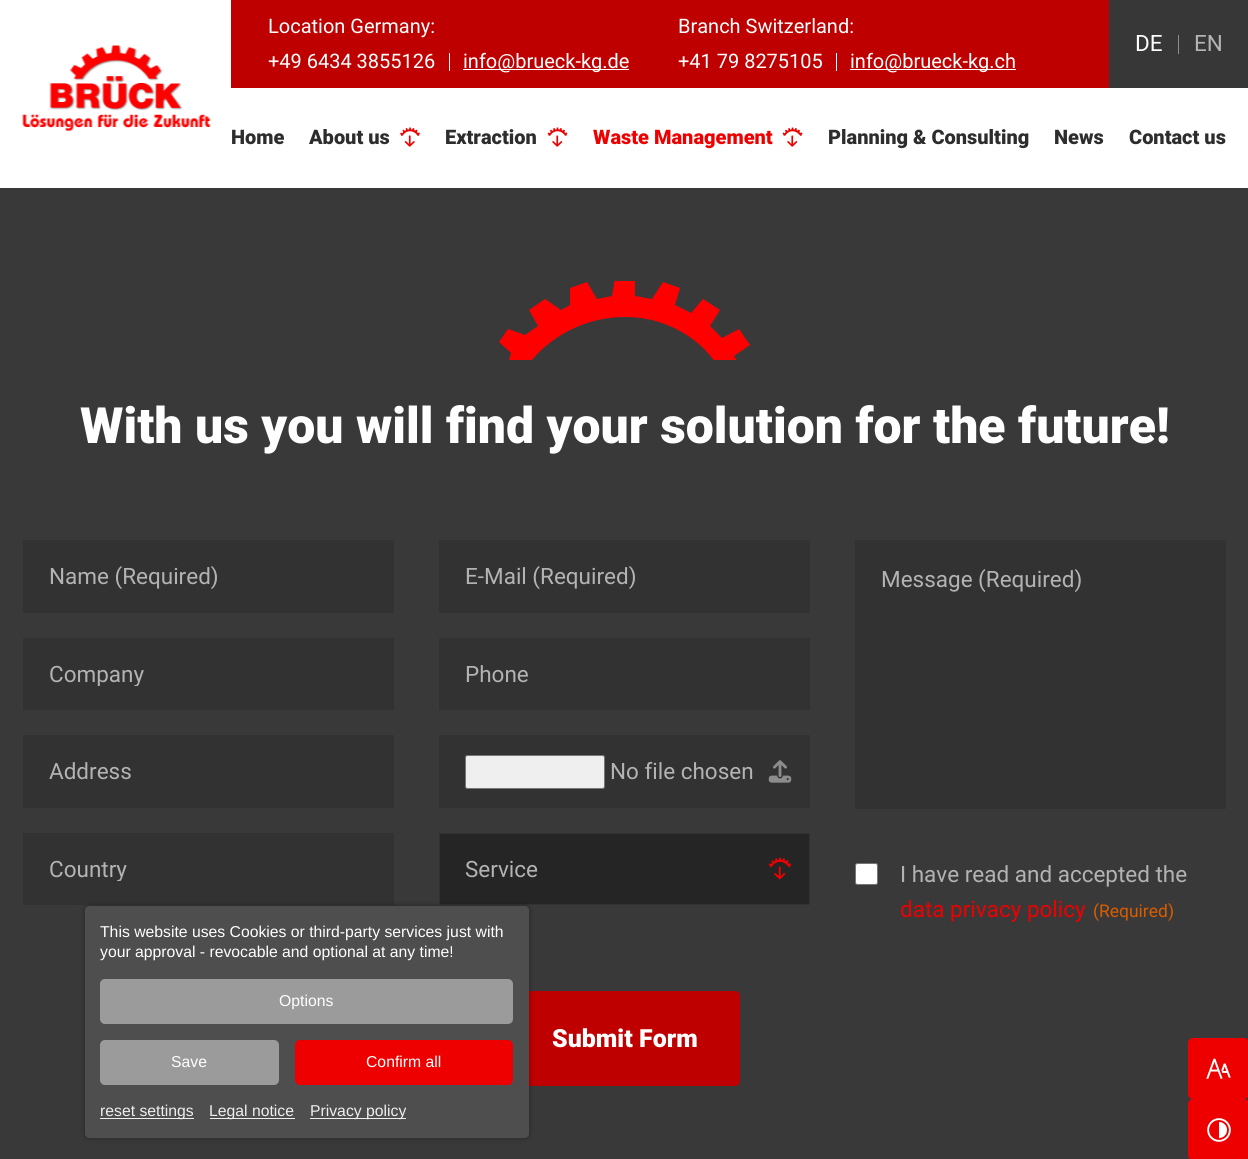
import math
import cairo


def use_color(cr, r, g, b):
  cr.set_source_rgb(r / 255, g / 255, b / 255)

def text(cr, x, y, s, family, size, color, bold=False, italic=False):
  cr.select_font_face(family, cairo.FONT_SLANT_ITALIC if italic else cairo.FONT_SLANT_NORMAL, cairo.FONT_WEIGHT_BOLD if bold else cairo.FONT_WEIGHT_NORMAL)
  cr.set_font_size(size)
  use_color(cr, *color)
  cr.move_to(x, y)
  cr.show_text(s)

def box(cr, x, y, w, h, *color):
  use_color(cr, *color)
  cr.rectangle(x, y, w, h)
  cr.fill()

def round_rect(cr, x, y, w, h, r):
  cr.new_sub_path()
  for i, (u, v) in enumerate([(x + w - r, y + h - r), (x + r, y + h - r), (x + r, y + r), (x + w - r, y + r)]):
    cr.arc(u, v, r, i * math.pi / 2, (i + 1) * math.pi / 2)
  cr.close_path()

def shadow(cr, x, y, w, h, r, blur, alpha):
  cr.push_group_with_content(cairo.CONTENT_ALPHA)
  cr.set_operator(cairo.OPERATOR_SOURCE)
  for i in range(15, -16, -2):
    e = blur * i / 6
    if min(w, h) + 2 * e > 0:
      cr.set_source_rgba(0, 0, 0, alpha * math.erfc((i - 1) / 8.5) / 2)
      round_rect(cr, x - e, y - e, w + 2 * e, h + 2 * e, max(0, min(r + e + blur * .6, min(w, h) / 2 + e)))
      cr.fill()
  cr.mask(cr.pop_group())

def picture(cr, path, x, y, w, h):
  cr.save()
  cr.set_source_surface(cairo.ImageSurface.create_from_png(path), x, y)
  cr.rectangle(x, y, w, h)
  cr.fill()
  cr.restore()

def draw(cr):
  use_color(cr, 57, 57, 57)
  cr.paint()
  box(cr, 0, 0, 1248, 188, 255, 255, 255)
  box(cr, 231, 0, 878, 88, 191, 0, 0)
  box(cr, 449, 53, 1, 18, 255, 255, 255)
  box(cr, 463, 69, 166, 1, 255, 255, 255)
  box(cr, 836, 53, 1, 18, 255, 255, 255)
  box(cr, 850, 69, 166, 1, 255, 255, 255)
  box(cr, 1109, 0, 139, 88, 55, 55, 55)
  box(cr, 1178, 35, 1, 19, 140, 140, 140)
  picture(cr, "img_01.png", 400, 127, 20, 20)
  picture(cr, "img_02.png", 547, 127, 21, 20)
  picture(cr, "img_02.png", 782, 127, 21, 20)
  picture(cr, "img_03.png", 22, 45, 189, 87)
  cr.save()
  cr.rectangle(499, 281, 251, 79)
  cr.clip()
  use_color(cr, 254, 0, 0)
  cr.new_path()
  cr.move_to(508, 364)
  cr.line_to(529, 364)
  cr.curve_to(540, 348, 574, 317, 625, 317)
  cr.curve_to(675, 317, 707, 348, 716, 364)
  cr.line_to(739, 364)
  cr.line_to(734, 356)
  cr.line_to(750, 345)
  cr.line_to(739, 329)
  cr.line_to(722, 338)
  cr.line_to(710, 326)
  cr.line_to(720, 310)
  cr.line_to(703, 299)
  cr.line_to(691, 313)
  cr.line_to(675, 305)
  cr.line_to(680, 288)
  cr.line_to(663, 282)
  cr.line_to(652, 299)
  cr.line_to(635, 296)
  cr.line_to(635, 278)
  cr.line_to(615, 278)
  cr.line_to(612, 296)
  cr.line_to(597, 299)
  cr.line_to(587, 282)
  cr.line_to(570, 288)
  cr.line_to(570, 305)
  cr.line_to(561, 310)
  cr.line_to(545, 299)
  cr.line_to(529, 310)
  cr.line_to(538, 326)
  cr.line_to(525, 335)
  cr.line_to(508, 329)
  cr.line_to(499, 342)
  cr.line_to(511, 353)
  cr.close_path()
  cr.fill()
  cr.restore()
  box(cr, 23, 540, 371, 73, 50, 50, 50)
  box(cr, 23, 638, 371, 72, 50, 50, 50)
  box(cr, 23, 735, 371, 73, 50, 50, 50)
  box(cr, 23, 833, 371, 72, 50, 50, 50)
  box(cr, 439, 540, 371, 73, 50, 50, 50)
  box(cr, 439, 638, 371, 72, 50, 50, 50)
  box(cr, 439, 735, 371, 73, 50, 50, 50)
  use_color(cr, 239, 239, 239)
  round_rect(cr, 465.5, 755.5, 139, 33, 2)
  cr.fill_preserve()
  use_color(cr, 118, 118, 118)
  cr.set_line_width(1)
  cr.stroke()
  picture(cr, "img_04.png", 768, 760, 24, 23)
  use_color(cr, 37, 37, 37)
  cr.rectangle(439.5, 833.5, 370, 71)
  cr.fill_preserve()
  use_color(cr, 50, 50, 50)
  cr.stroke()
  picture(cr, "img_05.png", 768, 857, 24, 23)
  box(cr, 855, 540, 371, 269, 50, 50, 50)
  use_color(cr, 255, 255, 255)
  round_rect(cr, 855.5, 863.5, 22, 21, 2)
  cr.fill_preserve()
  use_color(cr, 118, 118, 118)
  cr.stroke()
  use_color(cr, 191, 0, 0)
  round_rect(cr, 509, 991, 231, 95, 5)
  cr.fill()
  use_color(cr, 0, 0, 0)
  shadow(cr, 85, 906, 444, 232, 5, 3, 0.35)
  use_color(cr, 78, 78, 78)
  round_rect(cr, 85, 906, 444, 232, 5)
  cr.fill()
  cr.new_path()
  cr.move_to(90, 906)
  cr.line_to(524, 906)
  cr.curve_to(527, 906, 529, 908, 529, 911)
  cr.line_to(529, 1040)
  cr.line_to(85, 1040)
  cr.line_to(85, 911)
  cr.curve_to(85, 908, 87, 906, 90, 906)
  cr.close_path()
  cr.fill()
  use_color(cr, 155, 155, 155)
  round_rect(cr, 100, 979, 413, 45, 5)
  cr.fill()
  round_rect(cr, 100, 1040, 179, 45, 5)
  cr.fill()
  use_color(cr, 238, 0, 0)
  round_rect(cr, 295, 1040, 218, 45, 5)
  cr.fill()
  use_color(cr, 78, 78, 78)
  cr.new_path()
  cr.move_to(85, 1085)
  cr.line_to(529, 1085)
  cr.line_to(529, 1133)
  cr.curve_to(529, 1136, 527, 1138, 524, 1138)
  cr.line_to(90, 1138)
  cr.curve_to(87, 1138, 85, 1136, 85, 1133)
  cr.close_path()
  cr.fill()
  box(cr, 100, 1118, 94, 1, 238, 238, 238)
  box(cr, 210, 1118, 85, 1, 238, 238, 238)
  box(cr, 310, 1118, 96, 1, 238, 238, 238)
  use_color(cr, 238, 0, 0)
  round_rect(cr, 1188, 1038, 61, 61, 5)
  cr.fill()
  picture(cr, "img_06.png", 1206, 1058, 25, 21)
  round_rect(cr, 1188, 1099, 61, 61, 5)
  cr.fill()
  picture(cr, "img_07.png", 1207, 1118, 24, 24)
  text(cr, 268, 33, "Location Germany:", "Roboto", 20, (255, 255, 255))
  text(cr, 268, 68, "+49 6434 3855126", "Roboto", 20, (255, 255, 255))
  text(cr, 463, 68, "info@brueck-kg.de", "Roboto", 20, (255, 255, 255))
  text(cr, 678, 33, "Branch Switzerland:", "Roboto", 20, (255, 255, 255))
  text(cr, 678, 68, "+41 79 8275105", "Roboto", 20, (255, 255, 255))
  text(cr, 850, 68, "info@brueck-kg.ch", "Roboto", 20, (255, 255, 255))
  text(cr, 1135, 51, "DE", "Roboto", 22.5, (255, 255, 255))
  text(cr, 1194, 51, "EN", "Roboto", 22.5, (179, 179, 179))
  text(cr, 231, 144, "Home", "Roboto Black", 20, (45, 45, 45))
  text(cr, 309, 144, "About us", "Roboto Black", 20, (45, 45, 45))
  text(cr, 445, 144, "Extraction", "Roboto Black", 20, (45, 45, 45))
  text(cr, 593, 144, "Waste Management", "Roboto Black", 20, (238, 0, 0))
  text(cr, 828, 144, "Planning & Consulting", "Roboto Black", 20, (45, 45, 45))
  text(cr, 1054, 144, "News", "Roboto Black", 20, (45, 45, 45))
  text(cr, 1129, 144, "Contact us", "Roboto Black", 20, (45, 45, 45))
  text(cr, 80, 443, "With us you will find your solution for the future!", "Roboto Black", 50, (255, 255, 255))
  text(cr, 49, 584, "Name (Required)", "Roboto", 22.5, (179, 179, 179))
  cr.save()
  cr.rectangle(49, 660, 319, 26)
  cr.clip()
  text(cr, 49, 682, "Company", "Roboto", 22.5, (179, 179, 179))
  cr.restore()
  text(cr, 49, 779, "Address", "Roboto", 22.5, (179, 179, 179))
  cr.save()
  cr.rectangle(49, 855, 319, 26)
  cr.clip()
  text(cr, 49, 877, "Country", "Roboto", 22.5, (179, 179, 179))
  cr.restore()
  text(cr, 465, 584, "E-Mail (Required)", "Roboto", 22.5, (179, 179, 179))
  text(cr, 465, 682, "Phone", "Roboto", 22.5, (179, 179, 179))
  text(cr, 610, 779, "No file chosen", "Roboto", 22.5, (179, 179, 179))
  text(cr, 465, 877, "Service", "Roboto", 22.5, (179, 179, 179))
  text(cr, 881, 587, "Message (Required)", "Roboto", 22.5, (179, 179, 179))
  text(cr, 900, 882, "I have read and accepted the", "Roboto", 22.5, (179, 179, 179))
  text(cr, 900, 917, "data privacy policy", "Roboto", 22.5, (238, 0, 0))
  text(cr, 1093, 917, "(Required)", "Roboto", 17.5, (216, 93, 0))
  text(cr, 552, 1047, "Submit Form", "Roboto Black", 25, (255, 255, 255))
  text(cr, 100, 937, "This website uses Cookies or third-party services just with", "Liberation Sans", 15.75, (255, 255, 255))
  text(cr, 100, 957, "your approval - revocable and optional at any time!", "Liberation Sans", 15.75, (255, 255, 255))
  text(cr, 279, 1006, "Options", "Liberation Sans", 15.75, (255, 255, 255))
  text(cr, 171, 1067, "Save", "Liberation Sans", 15.75, (255, 255, 255))
  text(cr, 366, 1067, "Confirm all", "Liberation Sans", 15.75, (255, 255, 255))
  text(cr, 100, 1116, "reset settings", "Liberation Sans", 15.75, (238, 238, 238))
  text(cr, 209, 1116, "Legal notice", "Liberation Sans", 15.75, (238, 238, 238))
  text(cr, 310, 1116, "Privacy policy", "Liberation Sans", 15.75, (238, 238, 238))


surface = cairo.ImageSurface(cairo.FORMAT_RGB24, 1248, 1159)
cr = cairo.Context(surface)
options = cairo.FontOptions()
options.set_hint_metrics(cairo.HINT_METRICS_OFF)
options.set_hint_style(cairo.HINT_STYLE_NONE)
cr.set_font_options(options)
cr.set_miter_limit(4)
draw(cr)
surface.write_to_png("out.png")
